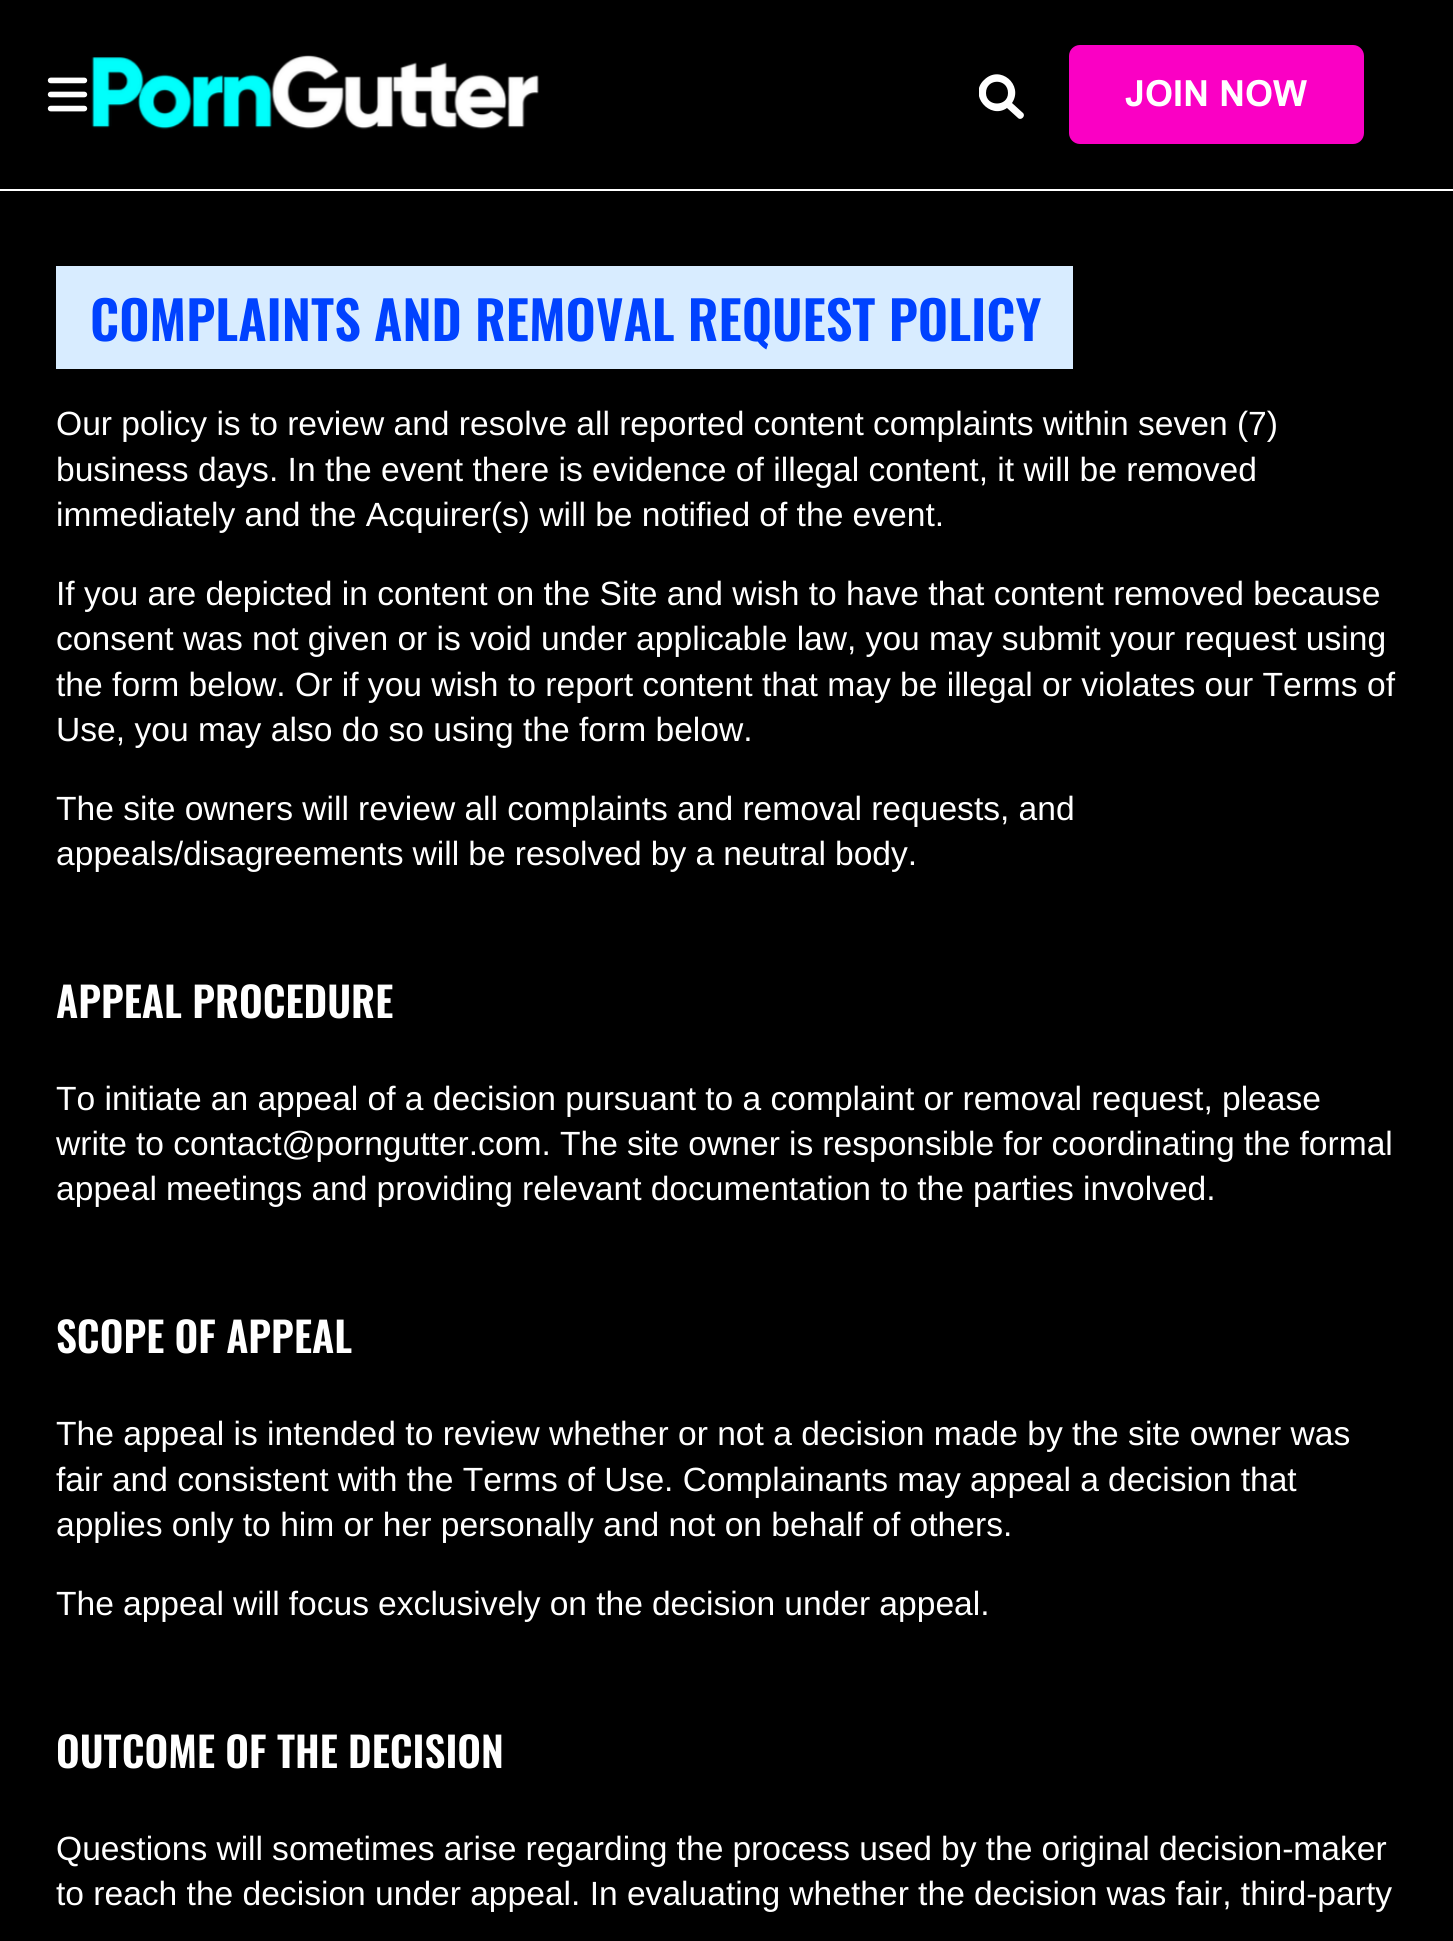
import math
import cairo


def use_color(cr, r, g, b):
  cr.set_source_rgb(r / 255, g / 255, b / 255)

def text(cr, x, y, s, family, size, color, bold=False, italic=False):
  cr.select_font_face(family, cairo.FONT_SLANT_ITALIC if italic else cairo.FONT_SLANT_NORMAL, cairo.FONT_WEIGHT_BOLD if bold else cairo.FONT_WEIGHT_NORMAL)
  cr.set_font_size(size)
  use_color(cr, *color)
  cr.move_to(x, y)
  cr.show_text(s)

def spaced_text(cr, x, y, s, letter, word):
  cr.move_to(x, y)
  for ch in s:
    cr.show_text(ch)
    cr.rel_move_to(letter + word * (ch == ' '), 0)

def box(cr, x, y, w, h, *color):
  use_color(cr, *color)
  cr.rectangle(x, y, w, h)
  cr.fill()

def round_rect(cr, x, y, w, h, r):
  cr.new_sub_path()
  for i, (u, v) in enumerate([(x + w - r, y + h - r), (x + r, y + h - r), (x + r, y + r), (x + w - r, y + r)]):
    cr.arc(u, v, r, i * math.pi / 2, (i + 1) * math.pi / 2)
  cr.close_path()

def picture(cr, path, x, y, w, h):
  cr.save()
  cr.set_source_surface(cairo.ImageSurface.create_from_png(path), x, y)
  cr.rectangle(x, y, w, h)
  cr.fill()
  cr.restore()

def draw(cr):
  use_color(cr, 0, 0, 0)
  cr.paint()
  box(cr, 0, 189, 1453, 2, 255, 255, 255)
  picture(cr, "img_01.png", 47, 77, 41, 35)
  picture(cr, "img_02.png", 91, 55, 448, 75)
  cr.save()
  cr.rectangle(979, 74, 45, 45)
  cr.clip()
  cr.new_path()
  cr.move_to(1023, 113)
  cr.line_to(1012, 103)
  cr.curve_to(1024, 85, 1000, 64, 984, 80)
  cr.curve_to(968, 95, 990, 120, 1007, 108)
  cr.line_to(1018, 118)
  cr.curve_to(1021, 121, 1026, 116, 1023, 113)
  cr.close_path()
  cr.move_to(986, 93)
  cr.curve_to(986, 78, 1008, 78, 1008, 93)
  cr.curve_to(1008, 107, 986, 107, 986, 93)
  cr.close_path()
  cr.fill()
  cr.restore()
  use_color(cr, 250, 0, 196)
  round_rect(cr, 1069, 45, 295, 99, 11)
  cr.fill()
  box(cr, 56, 266, 1017, 103, 216, 236, 255)
  text(cr, 1125, 106, "JOIN NOW", "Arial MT", 36, (255, 255, 255), bold=True)
  text(cr, 90, 341, "COMPLAINTS AND REMOVAL REQUEST POLICY", "Oswald SemiBold", 52.75, (0, 66, 255))
  cr.select_font_face("Liberation Sans")
  cr.set_font_size(33.6)
  use_color(cr, 255, 255, 255)
  spaced_text(cr, 56, 435, "Our policy is to review and resolve all reported content complaints within seven (7)", 0, -0.1)
  text(cr, 56, 481, "business days. In the event there is evidence of illegal content, it will be removed", "Liberation Sans", 33.6, (255, 255, 255))
  spaced_text(cr, 56, 526, "immediately and the Acquirer(s) will be notified of the event.", 0, -0.1)
  text(cr, 56, 605, "If you are depicted in content on the Site and wish to have that content removed because", "Liberation Sans", 33.6, (255, 255, 255))
  spaced_text(cr, 56, 650, "consent was not given or is void under applicable law, you may submit your request using", 0, -0.1)
  text(cr, 56, 696, "the form below. Or if you wish to report content that may be illegal or violates our Terms of", "Liberation Sans", 33.6, (255, 255, 255))
  text(cr, 56, 741, "Use, you may also do so using the form below.", "Liberation Sans", 33.6, (255, 255, 255))
  spaced_text(cr, 56, 820, "The site owners will review all complaints and removal requests, and", 0, -0.1)
  spaced_text(cr, 56, 865, "appeals/disagreements will be resolved by a neutral body.", 0, -0.25)
  text(cr, 56, 1018, "APPEAL PROCEDURE", "Oswald SemiBold", 41.25, (255, 255, 255))
  cr.select_font_face("Liberation Sans")
  cr.set_font_size(33.6)
  spaced_text(cr, 56, 1110, "To initiate an appeal of a decision pursuant to a complaint or removal request, please", 0, -0.1)
  spaced_text(cr, 56, 1155, "write to contact@porngutter.com. The site owner is responsible for coordinating the formal", 0, -0.25)
  spaced_text(cr, 56, 1200, "appeal meetings and providing relevant documentation to the parties involved.", 0, -0.25)
  text(cr, 56, 1353, "SCOPE OF APPEAL", "Oswald SemiBold", 41.25, (255, 255, 255))
  text(cr, 56, 1445, "The appeal is intended to review whether or not a decision made by the site owner was", "Liberation Sans", 33.6, (255, 255, 255))
  spaced_text(cr, 56, 1491, "fair and consistent with the Terms of Use. Complainants may appeal a decision that", 0, -0.1)
  text(cr, 56, 1536, "applies only to him or her personally and not on behalf of others.", "Liberation Sans", 33.6, (255, 255, 255))
  spaced_text(cr, 56, 1615, "The appeal will focus exclusively on the decision under appeal.", 0, -0.25)
  text(cr, 56, 1768, "OUTCOME OF THE DECISION", "Oswald SemiBold", 41.25, (255, 255, 255))
  cr.select_font_face("Liberation Sans")
  cr.set_font_size(33.6)
  spaced_text(cr, 56, 1860, "Questions will sometimes arise regarding the process used by the original decision-maker", 0, -0.25)
  spaced_text(cr, 56, 1905, "to reach the decision under appeal. In evaluating whether the decision was fair, third-party", 0, -0.1)


surface = cairo.ImageSurface(cairo.FORMAT_RGB24, 1453, 1941)
cr = cairo.Context(surface)
options = cairo.FontOptions()
options.set_hint_metrics(cairo.HINT_METRICS_OFF)
options.set_hint_style(cairo.HINT_STYLE_NONE)
cr.set_font_options(options)
cr.set_miter_limit(4)
draw(cr)
surface.write_to_png("out.png")
